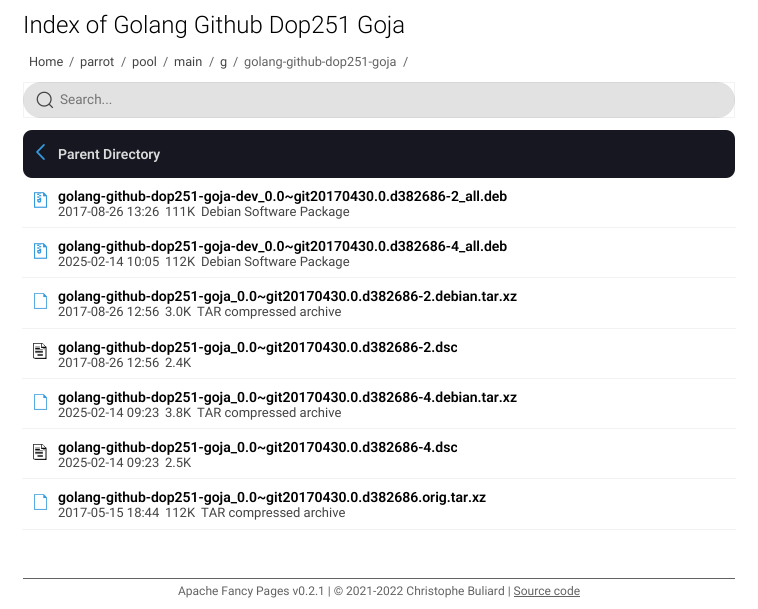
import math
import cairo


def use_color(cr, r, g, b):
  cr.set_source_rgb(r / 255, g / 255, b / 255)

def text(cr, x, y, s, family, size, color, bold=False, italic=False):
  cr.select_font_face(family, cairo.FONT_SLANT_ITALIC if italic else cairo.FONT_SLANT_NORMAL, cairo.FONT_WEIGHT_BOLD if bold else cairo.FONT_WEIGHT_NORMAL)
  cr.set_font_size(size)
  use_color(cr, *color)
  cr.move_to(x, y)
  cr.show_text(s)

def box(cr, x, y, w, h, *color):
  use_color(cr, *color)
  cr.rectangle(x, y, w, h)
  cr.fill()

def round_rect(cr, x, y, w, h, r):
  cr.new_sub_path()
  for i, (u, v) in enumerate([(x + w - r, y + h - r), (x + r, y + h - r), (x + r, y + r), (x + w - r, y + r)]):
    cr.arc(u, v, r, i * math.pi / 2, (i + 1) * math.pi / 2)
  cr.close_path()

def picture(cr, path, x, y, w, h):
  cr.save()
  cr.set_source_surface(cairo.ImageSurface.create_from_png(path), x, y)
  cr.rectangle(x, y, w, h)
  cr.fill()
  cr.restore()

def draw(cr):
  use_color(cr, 255, 255, 255)
  cr.paint()
  use_color(cr, 227, 226, 226)
  round_rect(cr, 23, 82, 712, 36, 18)
  cr.fill()
  cr.rectangle(23.5, 82.5, 711, 35)
  cr.set_source_rgba(0, 0, 0, 0.05)
  cr.set_line_width(1)
  cr.stroke()
  picture(cr, "img_01.png", 36, 91, 18, 18)
  use_color(cr, 22, 23, 32)
  cr.new_path()
  cr.move_to(32, 130)
  cr.line_to(58, 130)
  cr.line_to(58, 178)
  cr.line_to(32, 178)
  cr.curve_to(27, 178, 23, 174, 23, 169)
  cr.line_to(23, 139)
  cr.curve_to(23, 134, 27, 130, 32, 130)
  cr.close_path()
  cr.fill()
  picture(cr, "img_02.png", 36, 144, 9, 16)
  cr.new_path()
  cr.move_to(58, 130)
  cr.line_to(726, 130)
  cr.curve_to(731, 130, 735, 134, 735, 139)
  cr.line_to(735, 169)
  cr.curve_to(735, 174, 731, 178, 726, 178)
  cr.line_to(58, 178)
  cr.close_path()
  cr.fill()
  box(cr, 22, 227, 714, 1, 242, 242, 242)
  picture(cr, "img_03.png", 34, 192, 13, 16)
  box(cr, 22, 277, 714, 1, 242, 242, 242)
  picture(cr, "img_03.png", 34, 243, 13, 16)
  box(cr, 22, 328, 714, 1, 242, 242, 242)
  picture(cr, "img_04.png", 34, 293, 13, 16)
  box(cr, 22, 378, 714, 1, 242, 242, 242)
  picture(cr, "img_05.png", 33, 343, 14, 16)
  box(cr, 22, 428, 714, 1, 242, 242, 242)
  picture(cr, "img_04.png", 34, 394, 13, 16)
  box(cr, 22, 478, 714, 1, 242, 242, 242)
  picture(cr, "img_05.png", 33, 444, 14, 16)
  box(cr, 22, 529, 714, 1, 242, 242, 242)
  picture(cr, "img_04.png", 34, 494, 13, 16)
  box(cr, 23, 578, 712, 1, 99, 99, 99)
  box(cr, 514, 596, 66, 1, 99, 99, 99)
  text(cr, 23, 33, "Index of Golang Github Dop251 Goja", "Roboto Light", 24, (0, 0, 0))
  text(cr, 29, 66, "Home", "Roboto", 12.75, (68, 68, 68))
  text(cr, 69, 66, "/", "Roboto", 12.75, (99, 99, 99))
  text(cr, 80, 66, "parrot", "Roboto", 12.75, (68, 68, 68))
  text(cr, 121, 66, "/", "Roboto", 12.75, (99, 99, 99))
  text(cr, 132, 66, "pool", "Roboto", 12.75, (68, 68, 68))
  text(cr, 163, 66, "/", "Roboto", 12.75, (99, 99, 99))
  text(cr, 174, 66, "main", "Roboto", 12.75, (68, 68, 68))
  text(cr, 209, 66, "/", "Roboto", 12.75, (99, 99, 99))
  text(cr, 220, 66, "g", "Roboto", 12.75, (68, 68, 68))
  text(cr, 233, 66, "/", "Roboto", 12.75, (99, 99, 99))
  text(cr, 244, 66, "golang-github-dop251-goja", "Roboto", 12.75, (99, 99, 99))
  text(cr, 403, 66, "/", "Roboto", 12.75, (99, 99, 99))
  text(cr, 60, 104, "Search...", "Roboto", 13.5, (117, 117, 117))
  text(cr, 58, 159, "Parent Directory", "Roboto SemiBold", 14, (218, 218, 218))
  text(cr, 58, 201, "golang-github-dop251-goja-dev_0.0~git20170430.0.d382686-2_all.deb", "Roboto SemiBold", 14, (0, 0, 0))
  text(cr, 58, 216, "2017-08-26 13:26", "Roboto", 13, (68, 68, 68))
  text(cr, 165, 216, "111K", "Roboto", 13, (68, 68, 68))
  text(cr, 201, 216, "Debian Software Package", "Roboto", 13, (68, 68, 68))
  text(cr, 58, 251, "golang-github-dop251-goja-dev_0.0~git20170430.0.d382686-4_all.deb", "Roboto SemiBold", 14, (0, 0, 0))
  text(cr, 58, 266, "2025-02-14 10:05", "Roboto", 13, (68, 68, 68))
  text(cr, 165, 266, "112K", "Roboto", 13, (68, 68, 68))
  text(cr, 201, 266, "Debian Software Package", "Roboto", 13, (68, 68, 68))
  text(cr, 58, 301, "golang-github-dop251-goja_0.0~git20170430.0.d382686-2.debian.tar.xz", "Roboto SemiBold", 14, (0, 0, 0))
  text(cr, 58, 316, "2017-08-26 12:56", "Roboto", 13, (68, 68, 68))
  text(cr, 165, 316, "3.0K", "Roboto", 13, (68, 68, 68))
  text(cr, 197, 316, "TAR compressed archive", "Roboto", 13, (68, 68, 68))
  text(cr, 58, 352, "golang-github-dop251-goja_0.0~git20170430.0.d382686-2.dsc", "Roboto SemiBold", 14, (0, 0, 0))
  text(cr, 58, 367, "2017-08-26 12:56", "Roboto", 13, (68, 68, 68))
  text(cr, 165, 367, "2.4K", "Roboto", 13, (68, 68, 68))
  text(cr, 58, 402, "golang-github-dop251-goja_0.0~git20170430.0.d382686-4.debian.tar.xz", "Roboto SemiBold", 14, (0, 0, 0))
  text(cr, 58, 417, "2025-02-14 09:23", "Roboto", 13, (68, 68, 68))
  text(cr, 165, 417, "3.8K", "Roboto", 13, (68, 68, 68))
  text(cr, 197, 417, "TAR compressed archive", "Roboto", 13, (68, 68, 68))
  text(cr, 58, 452, "golang-github-dop251-goja_0.0~git20170430.0.d382686-4.dsc", "Roboto SemiBold", 14, (0, 0, 0))
  text(cr, 58, 467, "2025-02-14 09:23", "Roboto", 13, (68, 68, 68))
  text(cr, 165, 467, "2.5K", "Roboto", 13, (68, 68, 68))
  text(cr, 58, 502, "golang-github-dop251-goja_0.0~git20170430.0.d382686.orig.tar.xz", "Roboto SemiBold", 14, (0, 0, 0))
  text(cr, 58, 517, "2017-05-15 18:44", "Roboto", 13, (68, 68, 68))
  text(cr, 165, 517, "112K", "Roboto", 13, (68, 68, 68))
  text(cr, 201, 517, "TAR compressed archive", "Roboto", 13, (68, 68, 68))
  text(cr, 178, 595, "Apache Fancy Pages v0.2.1 | © 2021-2022 Christophe Buliard | Source code", "Roboto", 12, (99, 99, 99))


surface = cairo.ImageSurface(cairo.FORMAT_RGB24, 758, 609)
cr = cairo.Context(surface)
options = cairo.FontOptions()
options.set_hint_metrics(cairo.HINT_METRICS_OFF)
options.set_hint_style(cairo.HINT_STYLE_NONE)
cr.set_font_options(options)
cr.set_miter_limit(4)
draw(cr)
surface.write_to_png("out.png")
